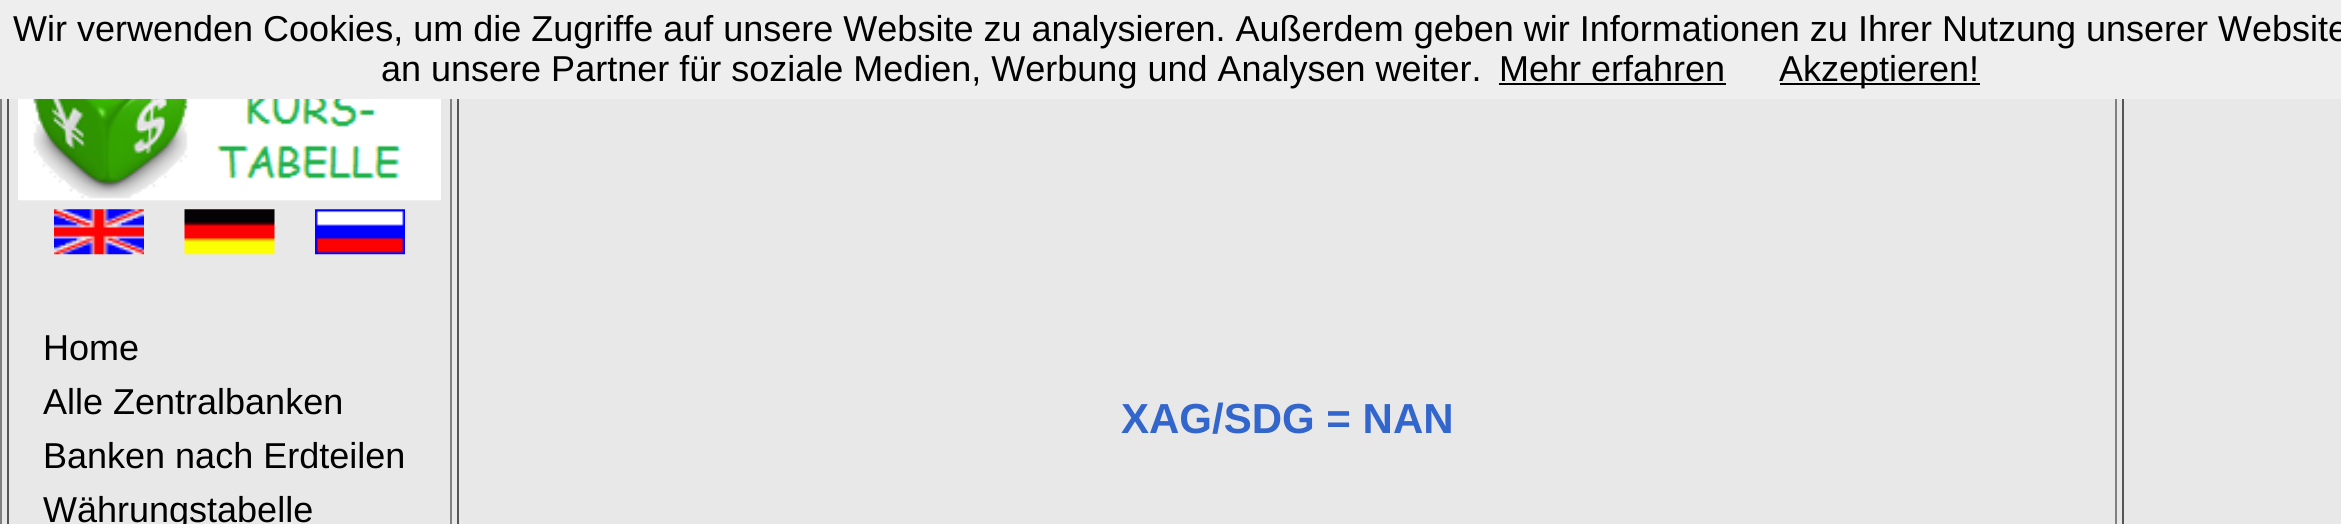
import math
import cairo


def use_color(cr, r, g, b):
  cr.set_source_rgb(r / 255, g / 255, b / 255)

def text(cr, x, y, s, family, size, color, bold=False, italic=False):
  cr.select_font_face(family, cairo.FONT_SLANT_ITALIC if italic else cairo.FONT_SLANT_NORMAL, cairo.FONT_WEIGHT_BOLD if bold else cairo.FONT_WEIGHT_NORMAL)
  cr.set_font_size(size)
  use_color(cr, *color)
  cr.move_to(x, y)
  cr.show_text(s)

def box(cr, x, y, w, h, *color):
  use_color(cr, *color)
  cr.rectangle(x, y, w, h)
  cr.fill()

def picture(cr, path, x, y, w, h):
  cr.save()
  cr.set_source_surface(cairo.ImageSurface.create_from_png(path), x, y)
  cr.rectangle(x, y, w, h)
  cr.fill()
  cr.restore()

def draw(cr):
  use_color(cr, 232, 232, 232)
  cr.paint()
  box(cr, 0, 0, 2341, 99, 238, 238, 238)
  box(cr, 1499, 83, 227, 2, 0, 0, 0)
  box(cr, 1780, 83, 200, 2, 0, 0, 0)
  box(cr, 0, 99, 2, 425, 128, 128, 128)
  box(cr, 450, 99, 2, 425, 128, 128, 128)
  box(cr, 7, 99, 2, 425, 85, 85, 85)
  picture(cr, "img_01.png", 18, 99, 423, 102)
  picture(cr, "img_02.png", 54, 209, 90, 46)
  picture(cr, "img_03.png", 184, 209, 91, 46)
  picture(cr, "img_04.png", 315, 209, 90, 46)
  box(cr, 2115, 99, 2, 425, 128, 128, 128)
  box(cr, 457, 99, 2, 425, 85, 85, 85)
  box(cr, 2122, 99, 2, 425, 85, 85, 85)
  text(cr, 13, 41, "Wir verwenden Cookies, um die Zugriffe auf unsere Website zu analysieren. Außerdem geben wir Informationen zu Ihrer Nutzung unserer Website", "Liberation Sans", 36, (0, 0, 0))
  text(cr, 381, 81, "an unsere Partner für soziale Medien, Werbung und Analysen weiter.", "Liberation Sans", 36, (0, 0, 0))
  text(cr, 1499, 81, "Mehr erfahren", "Liberation Sans", 36, (0, 0, 0))
  text(cr, 1779, 81, "Akzeptieren!", "Liberation Sans", 36, (0, 0, 0))
  text(cr, 43, 360, "Home", "Liberation Sans", 36, (0, 0, 0))
  text(cr, 43, 414, "Alle Zentralbanken", "Liberation Sans", 36, (0, 0, 0))
  text(cr, 43, 468, "Banken nach Erdteilen", "Liberation Sans", 36, (0, 0, 0))
  text(cr, 43, 522, "Währungstabelle", "Liberation Sans", 36, (0, 0, 0))
  text(cr, 1121, 433, "XAG/SDG = NAN", "Liberation Sans", 42, (51, 102, 204), bold=True)


surface = cairo.ImageSurface(cairo.FORMAT_RGB24, 2341, 524)
cr = cairo.Context(surface)
options = cairo.FontOptions()
options.set_hint_metrics(cairo.HINT_METRICS_OFF)
options.set_hint_style(cairo.HINT_STYLE_NONE)
cr.set_font_options(options)
cr.set_miter_limit(4)
draw(cr)
surface.write_to_png("out.png")
